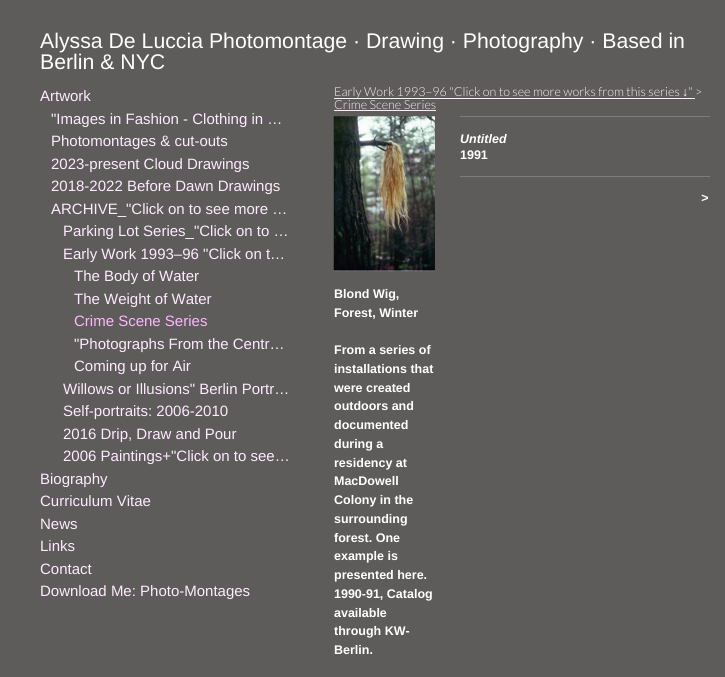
import math
import cairo


def use_color(cr, r, g, b):
  cr.set_source_rgb(r / 255, g / 255, b / 255)

def text(cr, x, y, s, family, size, color, bold=False, italic=False):
  cr.select_font_face(family, cairo.FONT_SLANT_ITALIC if italic else cairo.FONT_SLANT_NORMAL, cairo.FONT_WEIGHT_BOLD if bold else cairo.FONT_WEIGHT_NORMAL)
  cr.set_font_size(size)
  use_color(cr, *color)
  cr.move_to(x, y)
  cr.show_text(s)

def spaced_text(cr, x, y, s, letter, word):
  cr.move_to(x, y)
  for ch in s:
    cr.show_text(ch)
    cr.rel_move_to(letter + word * (ch == ' '), 0)

def box(cr, x, y, w, h, *color):
  use_color(cr, *color)
  cr.rectangle(x, y, w, h)
  cr.fill()

def picture(cr, path, x, y, w, h):
  cr.save()
  cr.set_source_surface(cairo.ImageSurface.create_from_png(path), x, y)
  cr.rectangle(x, y, w, h)
  cr.fill()
  cr.restore()

def draw(cr):
  use_color(cr, 93, 92, 90)
  cr.paint()
  box(cr, 334, 98, 361, 1, 255, 233, 255)
  box(cr, 334, 110, 102, 1, 255, 233, 255)
  picture(cr, "img_01.png", 333, 116, 102, 156)
  box(cr, 460, 116, 250, 1, 125, 125, 123)
  box(cr, 460, 176, 250, 1, 125, 125, 123)
  text(cr, 40, 48, "Alyssa De Luccia Photomontage · Drawing · Photography · Based in", "Liberation Sans", 21.25, (255, 255, 255))
  text(cr, 40, 69, "Berlin & NYC", "Liberation Sans", 21.25, (255, 255, 255))
  text(cr, 40, 101, "Artwork", "Liberation Sans", 15, (255, 233, 255))
  text(cr, 51, 124, "\"Images in Fashion - Clothing in …", "Liberation Sans", 15, (255, 233, 255))
  text(cr, 51, 146, "Photomontages & cut-outs", "Liberation Sans", 15, (255, 233, 255))
  text(cr, 51, 169, "2023-present Cloud Drawings", "Liberation Sans", 15, (255, 233, 255))
  text(cr, 51, 191, "2018-2022 Before Dawn Drawings", "Liberation Sans", 15, (255, 233, 255))
  text(cr, 51, 214, "ARCHIVE_\"Click on to see more …", "Liberation Sans", 15, (255, 233, 255))
  text(cr, 63, 236, "Parking Lot Series_\"Click on to …", "Liberation Sans", 15, (255, 233, 255))
  text(cr, 63, 259, "Early Work 1993–96 \"Click on t…", "Liberation Sans", 15, (255, 233, 255))
  text(cr, 74, 281, "The Body of Water", "Liberation Sans", 15, (255, 233, 255))
  text(cr, 74, 304, "The Weight of Water", "Liberation Sans", 15, (255, 233, 255))
  text(cr, 74, 326, "Crime Scene Series", "Liberation Sans", 15, (255, 182, 255))
  text(cr, 74, 349, "\"Photographs From the Centr…", "Liberation Sans", 15, (255, 233, 255))
  text(cr, 74, 371, "Coming up for Air", "Liberation Sans", 15, (255, 233, 255))
  text(cr, 63, 394, "Willows or Illusions\" Berlin Portr…", "Liberation Sans", 15, (255, 233, 255))
  text(cr, 63, 416, "Self-portraits: 2006-2010", "Liberation Sans", 15, (255, 233, 255))
  text(cr, 63, 439, "2016 Drip, Draw and Pour", "Liberation Sans", 15, (255, 233, 255))
  text(cr, 63, 461, "2006 Paintings+\"Click on to see…", "Liberation Sans", 15, (255, 233, 255))
  text(cr, 40, 484, "Biography", "Liberation Sans", 15, (255, 233, 255))
  text(cr, 40, 506, "Curriculum Vitae", "Liberation Sans", 15, (255, 233, 255))
  text(cr, 40, 529, "News", "Liberation Sans", 15, (255, 233, 255))
  text(cr, 40, 551, "Links", "Liberation Sans", 15, (255, 233, 255))
  text(cr, 40, 574, "Contact", "Liberation Sans", 15, (255, 233, 255))
  text(cr, 40, 596, "Download Me: Photo-Montages", "Liberation Sans", 15, (255, 233, 255))
  text(cr, 334, 96, "Early Work 1993–96 \"Click on to see more works from this series", "Lato Light", 12.5, (255, 233, 255))
  text(cr, 682, 96, "↓", "Liberation Sans", 12.5, (255, 233, 255))
  text(cr, 688, 96, "\" >", "Lato Light", 12.5, (255, 233, 255))
  text(cr, 334, 109, "Crime Scene Series", "Lato Light", 12.5, (255, 233, 255))
  text(cr, 460, 143, "Untitled", "Liberation Sans", 12.5, (255, 255, 255), bold=True, italic=True)
  text(cr, 460, 159, "1991", "Liberation Sans", 12.5, (255, 255, 255), bold=True)
  cr.select_font_face("Liberation Sans", cairo.FONT_SLANT_ITALIC, cairo.FONT_WEIGHT_BOLD)
  spaced_text(cr, 701, 202, ">", 1, 0)
  text(cr, 334, 298, "Blond Wig,", "Liberation Sans", 12.5, (255, 255, 255), bold=True)
  text(cr, 334, 317, "Forest, Winter", "Liberation Sans", 12.5, (255, 255, 255), bold=True)
  text(cr, 334, 354, "From a series of", "Liberation Sans", 12.5, (255, 255, 255), bold=True)
  text(cr, 334, 373, "installations that", "Liberation Sans", 12.5, (255, 255, 255), bold=True)
  text(cr, 334, 392, "were created", "Liberation Sans", 12.5, (255, 255, 255), bold=True)
  text(cr, 334, 410, "outdoors and", "Liberation Sans", 12.5, (255, 255, 255), bold=True)
  text(cr, 334, 429, "documented", "Liberation Sans", 12.5, (255, 255, 255), bold=True)
  text(cr, 334, 448, "during a", "Liberation Sans", 12.5, (255, 255, 255), bold=True)
  text(cr, 334, 467, "residency at", "Liberation Sans", 12.5, (255, 255, 255), bold=True)
  text(cr, 334, 485, "MacDowell", "Liberation Sans", 12.5, (255, 255, 255), bold=True)
  text(cr, 334, 504, "Colony in the", "Liberation Sans", 12.5, (255, 255, 255), bold=True)
  text(cr, 334, 523, "surrounding", "Liberation Sans", 12.5, (255, 255, 255), bold=True)
  text(cr, 334, 542, "forest. One", "Liberation Sans", 12.5, (255, 255, 255), bold=True)
  text(cr, 334, 560, "example is", "Liberation Sans", 12.5, (255, 255, 255), bold=True)
  text(cr, 334, 579, "presented here.", "Liberation Sans", 12.5, (255, 255, 255), bold=True)
  text(cr, 334, 598, "1990-91, Catalog", "Liberation Sans", 12.5, (255, 255, 255), bold=True)
  text(cr, 334, 617, "available", "Liberation Sans", 12.5, (255, 255, 255), bold=True)
  text(cr, 334, 635, "through KW-", "Liberation Sans", 12.5, (255, 255, 255), bold=True)
  text(cr, 334, 654, "Berlin.", "Liberation Sans", 12.5, (255, 255, 255), bold=True)


surface = cairo.ImageSurface(cairo.FORMAT_RGB24, 725, 677)
cr = cairo.Context(surface)
options = cairo.FontOptions()
options.set_hint_metrics(cairo.HINT_METRICS_OFF)
options.set_hint_style(cairo.HINT_STYLE_NONE)
cr.set_font_options(options)
cr.set_miter_limit(4)
draw(cr)
surface.write_to_png("out.png")
